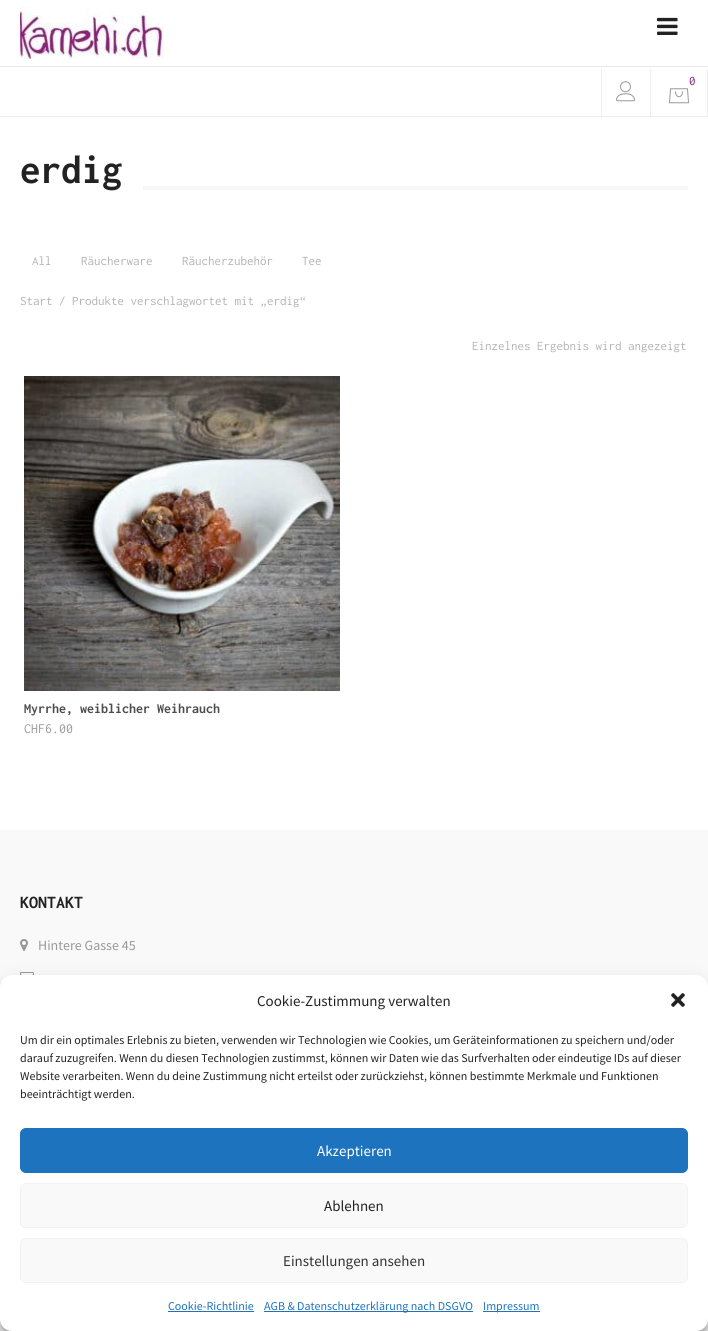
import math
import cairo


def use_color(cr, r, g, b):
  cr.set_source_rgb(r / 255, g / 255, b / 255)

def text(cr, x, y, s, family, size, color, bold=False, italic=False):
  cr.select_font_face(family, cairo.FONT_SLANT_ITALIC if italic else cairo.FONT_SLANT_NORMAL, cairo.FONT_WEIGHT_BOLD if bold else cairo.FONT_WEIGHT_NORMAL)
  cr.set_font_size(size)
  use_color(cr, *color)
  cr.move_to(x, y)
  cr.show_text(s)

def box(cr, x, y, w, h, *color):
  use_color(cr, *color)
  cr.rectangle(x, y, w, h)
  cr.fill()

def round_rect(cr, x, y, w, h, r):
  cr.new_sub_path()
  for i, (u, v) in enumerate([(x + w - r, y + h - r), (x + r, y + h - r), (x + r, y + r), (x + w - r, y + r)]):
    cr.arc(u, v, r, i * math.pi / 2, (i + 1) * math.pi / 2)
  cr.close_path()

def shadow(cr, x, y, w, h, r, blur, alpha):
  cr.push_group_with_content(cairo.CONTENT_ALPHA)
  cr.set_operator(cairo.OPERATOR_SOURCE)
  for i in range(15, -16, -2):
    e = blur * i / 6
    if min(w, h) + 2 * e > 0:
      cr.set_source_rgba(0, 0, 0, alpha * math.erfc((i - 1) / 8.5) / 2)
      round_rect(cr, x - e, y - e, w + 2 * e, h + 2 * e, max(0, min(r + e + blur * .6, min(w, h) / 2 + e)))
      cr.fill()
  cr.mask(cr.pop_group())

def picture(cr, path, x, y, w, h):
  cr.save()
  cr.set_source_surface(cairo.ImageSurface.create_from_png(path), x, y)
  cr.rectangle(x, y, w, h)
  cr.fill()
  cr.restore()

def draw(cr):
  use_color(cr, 255, 255, 255)
  cr.paint()
  box(cr, 0, 116, 708, 1, 238, 238, 238)
  picture(cr, "img_01.png", 20, 7, 144, 52)
  picture(cr, "img_02.png", 657, 17, 21, 18)
  box(cr, 0, 66, 708, 1, 235, 235, 235)
  box(cr, 601, 69, 1, 49, 238, 238, 238)
  picture(cr, "img_03.png", 616, 81, 19, 21)
  box(cr, 707, 69, 1, 48, 238, 238, 238)
  box(cr, 650, 69, 1, 48, 238, 238, 238)
  picture(cr, "img_04.png", 669, 88, 20, 16)
  box(cr, 143, 186, 545, 4, 247, 247, 247)
  picture(cr, "img_05.png", 24, 376, 316, 315)
  box(cr, 0, 830, 708, 501, 249, 249, 249)
  picture(cr, "img_06.png", 20, 939, 8, 12)
  picture(cr, "img_07.png", 20, 972, 14, 3)
  use_color(cr, 0, 0, 0)
  shadow(cr, 0, 981, 708, 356, 12, 3, 0.23)
  shadow(cr, 0, 985, 708, 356, 12, 10, 0.19)
  use_color(cr, 255, 255, 255)
  round_rect(cr, 0, 975, 708, 356, 12)
  cr.fill()
  picture(cr, "img_08.png", 671, 993, 14, 14)
  use_color(cr, 30, 115, 190)
  round_rect(cr, 20.5, 1128.5, 667, 44, 5.5)
  cr.fill_preserve()
  cr.set_line_width(1)
  cr.stroke()
  use_color(cr, 249, 249, 249)
  round_rect(cr, 20.5, 1183.5, 667, 44, 5.5)
  cr.fill_preserve()
  use_color(cr, 242, 242, 242)
  cr.stroke()
  use_color(cr, 249, 249, 249)
  round_rect(cr, 20.5, 1238.5, 667, 44, 5.5)
  cr.fill_preserve()
  use_color(cr, 242, 242, 242)
  cr.stroke()
  box(cr, 168, 1311, 86, 1, 30, 115, 190)
  box(cr, 264, 1311, 209, 1, 30, 115, 190)
  box(cr, 483, 1311, 57, 1, 30, 115, 190)
  text(cr, 689, 85, "0", "Inconsolata", 13, (131, 31, 130))
  text(cr, 20, 183, "erdig", "Inconsolata", 41, (34, 34, 34), bold=True)
  text(cr, 32, 265, "All", "Inconsolata", 13, (179, 179, 179))
  text(cr, 81, 265, "Räucherware", "Inconsolata", 13, (179, 179, 179))
  text(cr, 182, 265, "Räucherzubehör", "Inconsolata", 13, (179, 179, 179))
  text(cr, 302, 265, "Tee", "Inconsolata", 13, (179, 179, 179))
  text(cr, 20, 305, "Start / Produkte verschlagwortet mit „erdig“", "Inconsolata", 13, (179, 179, 179))
  text(cr, 472, 350, "Einzelnes Ergebnis wird angezeigt", "Inconsolata", 13, (179, 179, 179))
  text(cr, 24, 713, "Myrrhe, weiblicher Weihrauch", "Inconsolata", 14, (77, 77, 77), bold=True)
  text(cr, 24, 733, "CHF6.00", "Inconsolata", 14, (153, 153, 153))
  text(cr, 20, 908, "KONTAKT", "Inconsolata", 18, (34, 34, 34), bold=True)
  text(cr, 38, 950, "Hintere Gasse 45", "Source Sans Pro", 14, (153, 153, 153))
  text(cr, 257, 1006, "Cookie-Zustimmung verwalten", "Source Sans Pro", 15, (34, 34, 34))
  text(cr, 20, 1044, "Um dir ein optimales Erlebnis zu bieten, verwenden wir Technologien wie Cookies, um Geräteinformationen zu speichern und/oder", "Source Sans Pro", 12, (34, 34, 34))
  text(cr, 20, 1062, "darauf zuzugreifen. Wenn du diesen Technologien zustimmst, können wir Daten wie das Surfverhalten oder eindeutige IDs auf dieser", "Source Sans Pro", 12, (34, 34, 34))
  text(cr, 20, 1080, "Website verarbeiten. Wenn du deine Zustimmung nicht erteilst oder zurückziehst, können bestimmte Merkmale und Funktionen", "Source Sans Pro", 12, (34, 34, 34))
  text(cr, 20, 1098, "beeinträchtigt werden.", "Source Sans Pro", 12, (34, 34, 34))
  text(cr, 317, 1156, "Akzeptieren", "Source Sans Pro", 15, (255, 255, 255))
  text(cr, 324, 1211, "Ablehnen", "Source Sans Pro", 15, (34, 34, 34))
  text(cr, 283, 1266, "Einstellungen ansehen", "Source Sans Pro", 15, (51, 51, 51))
  text(cr, 168, 1310, "Cookie-Richtlinie", "Source Sans Pro", 12, (30, 115, 190))
  text(cr, 264, 1310, "AGB & Datenschutzerklärung nach DSGVO", "Source Sans Pro", 12, (30, 115, 190))
  text(cr, 483, 1310, "Impressum", "Source Sans Pro", 12, (30, 115, 190))


surface = cairo.ImageSurface(cairo.FORMAT_RGB24, 708, 1331)
cr = cairo.Context(surface)
options = cairo.FontOptions()
options.set_hint_metrics(cairo.HINT_METRICS_OFF)
options.set_hint_style(cairo.HINT_STYLE_NONE)
cr.set_font_options(options)
cr.set_miter_limit(4)
draw(cr)
surface.write_to_png("out.png")
